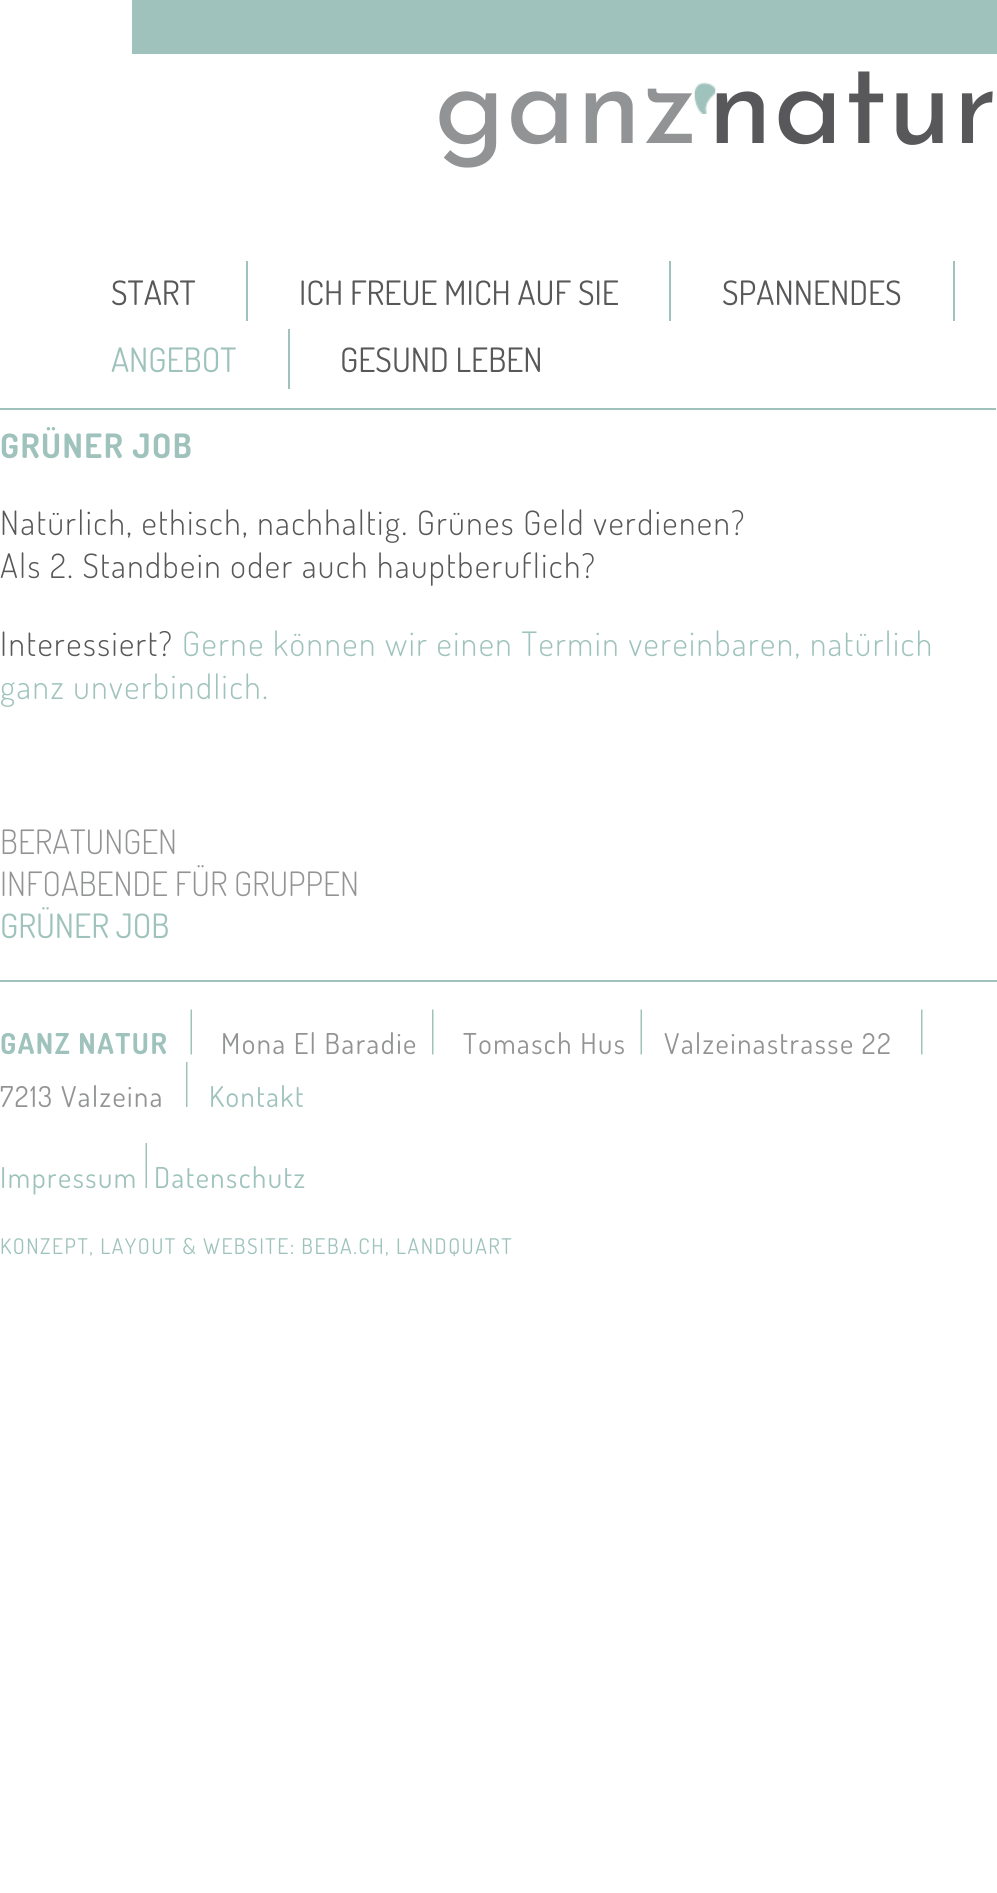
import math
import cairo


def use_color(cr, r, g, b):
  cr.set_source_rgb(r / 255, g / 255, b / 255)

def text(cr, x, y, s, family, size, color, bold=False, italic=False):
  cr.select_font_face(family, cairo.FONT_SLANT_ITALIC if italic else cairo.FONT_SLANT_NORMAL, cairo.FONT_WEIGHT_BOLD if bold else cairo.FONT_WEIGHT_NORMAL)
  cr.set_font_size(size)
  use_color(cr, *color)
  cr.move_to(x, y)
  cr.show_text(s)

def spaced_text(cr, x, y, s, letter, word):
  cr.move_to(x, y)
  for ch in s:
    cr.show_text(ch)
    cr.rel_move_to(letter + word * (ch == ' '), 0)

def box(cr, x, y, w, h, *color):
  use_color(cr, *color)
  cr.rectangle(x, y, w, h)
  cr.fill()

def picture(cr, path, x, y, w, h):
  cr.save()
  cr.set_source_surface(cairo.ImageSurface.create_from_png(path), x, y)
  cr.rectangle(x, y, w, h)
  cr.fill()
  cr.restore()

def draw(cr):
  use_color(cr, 255, 255, 255)
  cr.paint()
  box(cr, 132, 0, 865, 54, 159, 195, 188)
  picture(cr, "img_01.png", 694, 82, 22, 32)
  box(cr, 0, 408, 996, 2, 159, 195, 188)
  box(cr, 246, 261, 2, 60, 159, 195, 188)
  box(cr, 669, 261, 2, 60, 159, 195, 188)
  box(cr, 953, 261, 2, 60, 159, 195, 188)
  box(cr, 288, 329, 2, 60, 159, 195, 188)
  box(cr, 0, 980, 997, 2, 159, 195, 188)
  picture(cr, "img_02.png", 190, 1009, 2, 46)
  picture(cr, "img_03.png", 432, 1009, 2, 46)
  picture(cr, "img_02.png", 640, 1009, 2, 46)
  picture(cr, "img_03.png", 921, 1009, 2, 46)
  picture(cr, "img_04.png", 186, 1062, 2, 45)
  picture(cr, "img_05.png", 145, 1143, 2, 45)
  text(cr, 434, 143, "ganz", "Josefin Sans Thin", 120, (146, 147, 149))
  text(cr, 707, 143, "natur", "Josefin Sans Thin", 120, (88, 88, 90))
  text(cr, 111, 305, "START", "Dosis", 33.6, (88, 88, 90))
  text(cr, 299, 305, "ICH FREUE MICH AUF SIE", "Dosis", 33.6, (88, 88, 90))
  text(cr, 722, 305, "SPANNENDES", "Dosis", 33.6, (88, 88, 90))
  text(cr, 111, 372, "ANGEBOT", "Dosis", 33.6, (159, 195, 188))
  text(cr, 340, 372, "GESUND LEBEN", "Dosis", 33.6, (88, 88, 90))
  cr.select_font_face("Dosis", cairo.FONT_SLANT_NORMAL, cairo.FONT_WEIGHT_BOLD)
  use_color(cr, 159, 195, 188)
  spaced_text(cr, 0, 458, "GRÜNER JOB", 1.5, 0)
  cr.select_font_face("Dosis Light")
  use_color(cr, 88, 88, 90)
  spaced_text(cr, 0, 535, "Natürlich, ethisch, nachhaltig. Grünes Geld verdienen?", 1.5, 0)
  spaced_text(cr, 0, 578, "Als 2. Standbein oder auch hauptberuflich?", 1.5, 0)
  spaced_text(cr, 0, 656, "Interessiert?", 1.5, 0)
  use_color(cr, 159, 195, 188)
  spaced_text(cr, 182, 656, "Gerne können wir einen Termin vereinbaren, natürlich", 1.5, 0)
  spaced_text(cr, 0, 699, "ganz unverbindlich.", 1.5, 0)
  text(cr, 0, 854, "BERATUNGEN", "Dosis Light", 33.6, (146, 147, 149))
  text(cr, 0, 896, "INFOABENDE FÜR GRUPPEN", "Dosis Light", 33.6, (146, 147, 149))
  text(cr, 0, 938, "GRÜNER JOB", "Dosis", 33.6, (159, 195, 188))
  cr.select_font_face("Dosis", cairo.FONT_SLANT_NORMAL, cairo.FONT_WEIGHT_BOLD)
  cr.set_font_size(28.75)
  spaced_text(cr, 0, 1054, "GANZ NATUR", 1.5, 0)
  cr.select_font_face("Dosis")
  use_color(cr, 146, 147, 149)
  spaced_text(cr, 221, 1054, "Mona El Baradie", 1.5, 0)
  spaced_text(cr, 463, 1054, "Tomasch Hus", 1.5, 0)
  spaced_text(cr, 664, 1054, "Valzeinastrasse 22", 1.5, 0)
  spaced_text(cr, 0, 1107, "7213 Valzeina", 1.5, 0)
  use_color(cr, 159, 195, 188)
  spaced_text(cr, 209, 1107, "Kontakt", 1.5, 0)
  spaced_text(cr, 0, 1188, "Impressum", 1.5, 0)
  spaced_text(cr, 154, 1188, "Datenschutz", 1.5, 0)
  cr.set_font_size(21.6)
  spaced_text(cr, 0, 1254, "KONZEPT, LAYOUT & WEBSITE: BEBA.CH, LANDQUART", 1.5, 0)


surface = cairo.ImageSurface(cairo.FORMAT_RGB24, 997, 1893)
cr = cairo.Context(surface)
options = cairo.FontOptions()
options.set_hint_metrics(cairo.HINT_METRICS_OFF)
options.set_hint_style(cairo.HINT_STYLE_NONE)
cr.set_font_options(options)
cr.set_miter_limit(4)
draw(cr)
surface.write_to_png("out.png")
